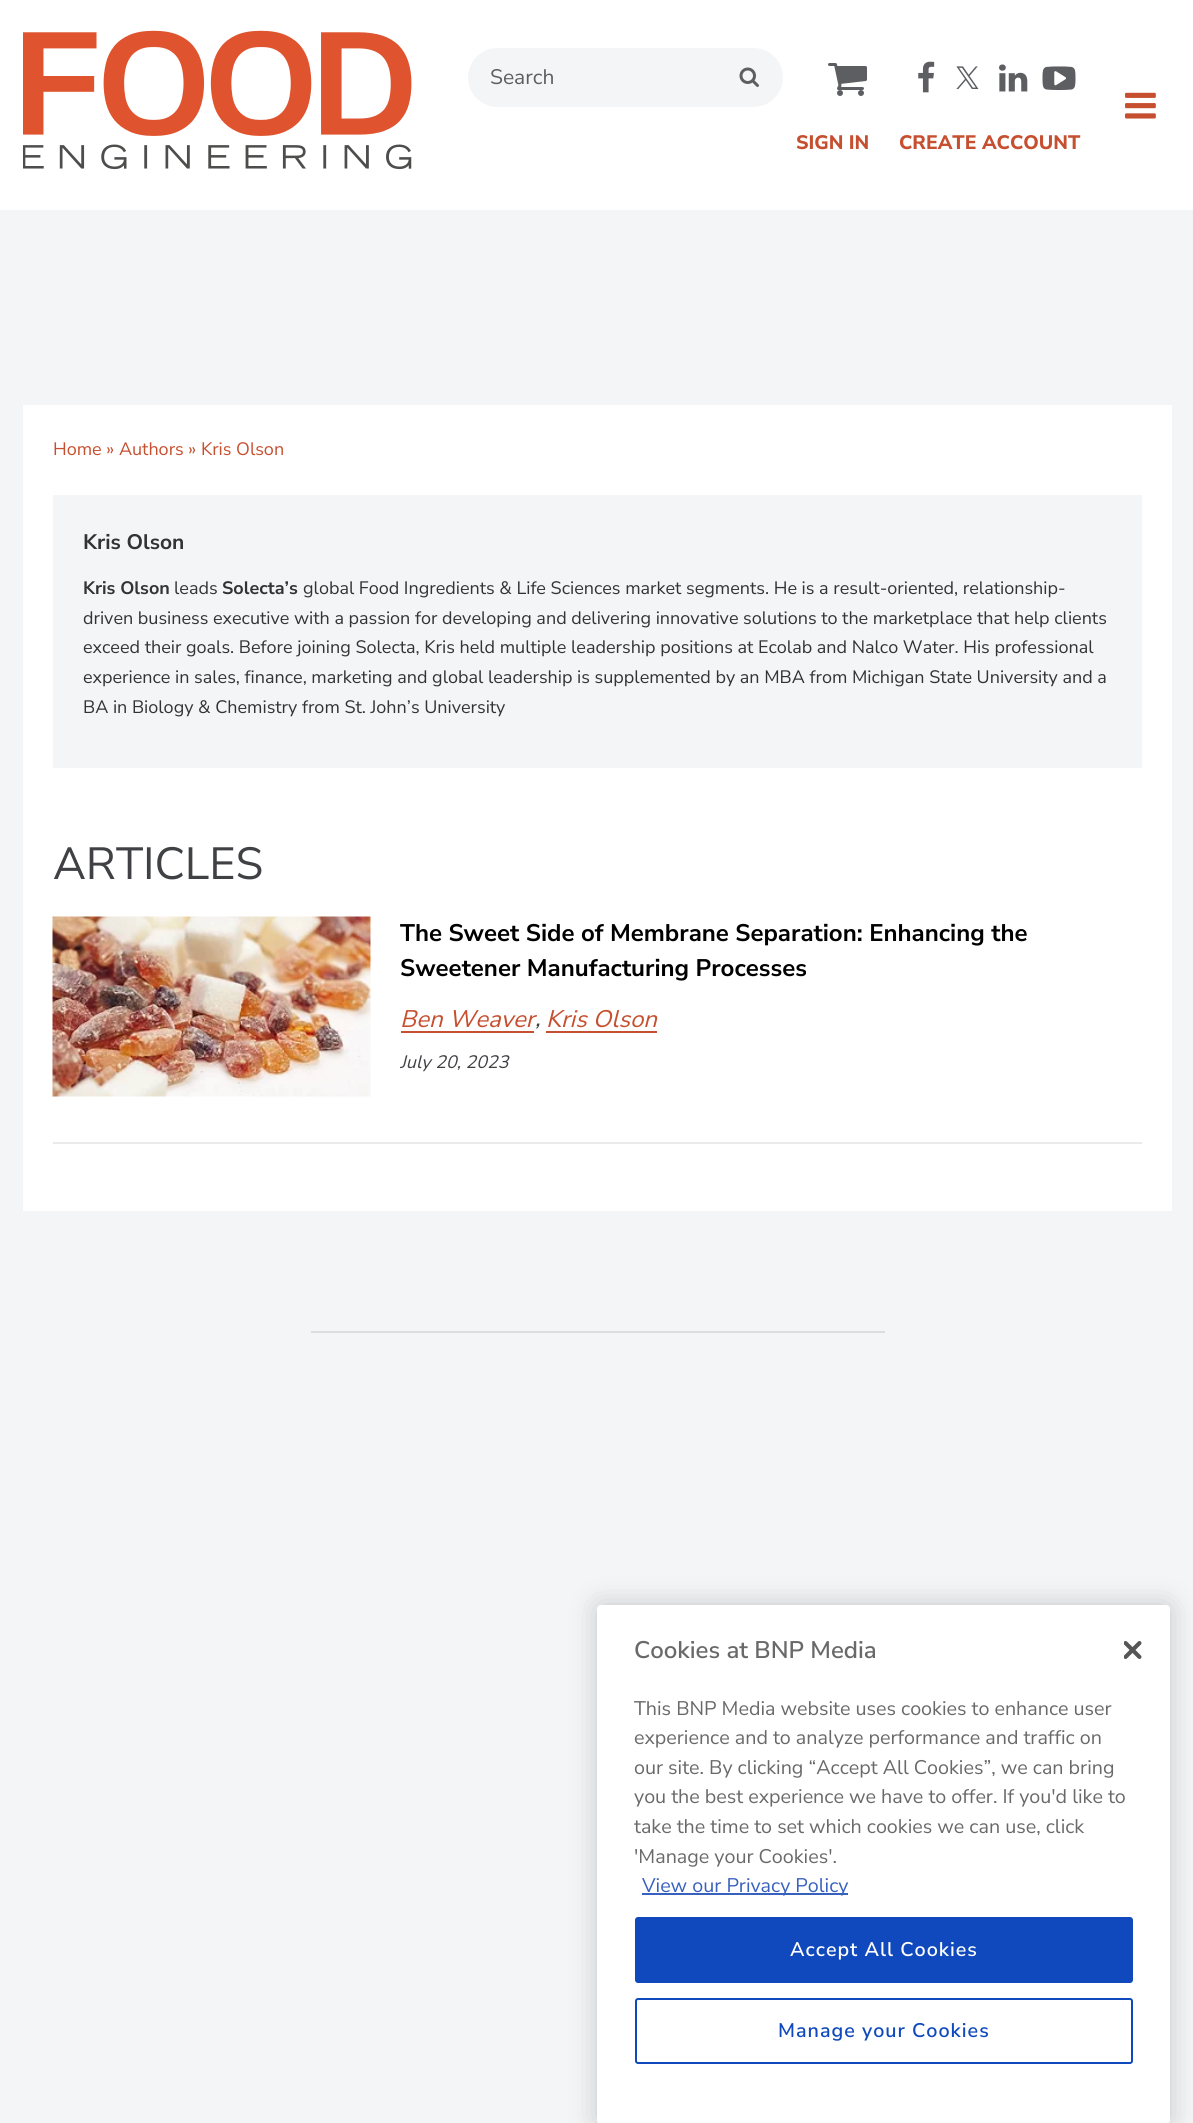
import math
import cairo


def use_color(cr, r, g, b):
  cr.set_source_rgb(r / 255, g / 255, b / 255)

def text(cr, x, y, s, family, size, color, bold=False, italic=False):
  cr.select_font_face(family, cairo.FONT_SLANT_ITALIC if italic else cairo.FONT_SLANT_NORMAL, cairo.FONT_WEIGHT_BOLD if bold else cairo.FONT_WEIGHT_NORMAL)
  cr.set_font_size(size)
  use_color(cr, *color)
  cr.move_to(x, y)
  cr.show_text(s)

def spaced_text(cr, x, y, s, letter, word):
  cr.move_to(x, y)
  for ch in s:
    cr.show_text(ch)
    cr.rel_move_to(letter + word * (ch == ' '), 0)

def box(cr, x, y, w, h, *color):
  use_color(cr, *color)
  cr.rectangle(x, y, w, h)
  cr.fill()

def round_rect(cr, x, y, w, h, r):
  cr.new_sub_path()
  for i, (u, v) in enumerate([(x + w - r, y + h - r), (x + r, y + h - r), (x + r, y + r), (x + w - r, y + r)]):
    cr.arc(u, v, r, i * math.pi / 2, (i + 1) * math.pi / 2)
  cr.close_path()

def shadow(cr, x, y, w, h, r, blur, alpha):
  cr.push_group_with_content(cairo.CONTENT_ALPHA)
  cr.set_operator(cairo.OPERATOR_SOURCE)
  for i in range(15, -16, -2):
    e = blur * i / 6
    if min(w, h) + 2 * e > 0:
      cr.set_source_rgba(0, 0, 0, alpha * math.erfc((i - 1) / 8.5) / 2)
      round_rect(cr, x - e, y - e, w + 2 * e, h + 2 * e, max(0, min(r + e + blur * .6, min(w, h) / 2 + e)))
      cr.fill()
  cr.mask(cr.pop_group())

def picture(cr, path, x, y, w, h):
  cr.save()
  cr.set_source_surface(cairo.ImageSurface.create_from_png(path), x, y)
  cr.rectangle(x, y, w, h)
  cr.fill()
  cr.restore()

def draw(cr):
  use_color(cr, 244, 245, 246)
  cr.paint()
  box(cr, 0, 0, 1193, 210, 255, 255, 255)
  picture(cr, "img_01.png", 23, 30, 389, 140)
  use_color(cr, 244, 245, 246)
  round_rect(cr, 468, 48, 315, 59, 29.5)
  cr.fill()
  picture(cr, "img_02.png", 739, 67, 20, 20)
  picture(cr, "img_03.png", 828, 63, 39, 33)
  picture(cr, "img_04.png", 918, 61, 17, 32)
  picture(cr, "img_05.png", 956, 66, 23, 23)
  picture(cr, "img_06.png", 999, 64, 29, 28)
  picture(cr, "img_07.png", 1042, 66, 34, 24)
  picture(cr, "img_08.png", 1125, 92, 31, 27)
  box(cr, 23, 405, 1149, 806, 255, 255, 255)
  box(cr, 53, 495, 1089, 273, 244, 245, 246)
  box(cr, 53, 1142, 1089, 2, 234, 234, 234)
  picture(cr, "img_09.png", 52, 916, 319, 181)
  box(cr, 401, 1031, 133, 2, 198, 79, 47)
  box(cr, 546, 1031, 111, 2, 198, 79, 47)
  box(cr, 311, 1331, 574, 2, 221, 221, 221)
  use_color(cr, 0, 0, 0)
  shadow(cr, 597, 1605, 573, 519, 4, 13.5, 0.2)
  use_color(cr, 255, 255, 255)
  round_rect(cr, 597, 1605, 573, 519, 4)
  cr.fill()
  box(cr, 642, 1893, 206, 2, 56, 96, 190)
  picture(cr, "img_10.png", 1124, 1641, 18, 18)
  use_color(cr, 15, 73, 189)
  round_rect(cr, 636, 1918, 496, 64, 2)
  cr.fill_preserve()
  cr.stroke()
  round_rect(cr, 636, 1999, 496, 64, 2)
  cr.stroke()
  text(cr, 490, 84, "Search", "Nunito Sans", 21, (93, 94, 98))
  text(cr, 796, 149, "SIGN IN", "Nunito Sans ExtraBold", 19.5, (198, 79, 47))
  text(cr, 899, 149, "CREATE ACCOUNT", "Nunito Sans ExtraBold", 19.5, (198, 79, 47))
  text(cr, 53, 455, "Home » Authors » Kris Olson", "Nunito Sans", 18, (198, 79, 47))
  text(cr, 83, 549, "Kris Olson", "Nunito Sans", 21, (51, 51, 51), bold=True)
  text(cr, 83, 594, "Kris Olson", "Nunito Sans", 18, (51, 51, 51), bold=True)
  text(cr, 174, 594, "leads", "Nunito Sans", 18, (51, 51, 51))
  text(cr, 222, 594, "Solecta’s", "Nunito Sans", 18, (51, 51, 51), bold=True)
  text(cr, 303, 594, "global Food Ingredients & Life Sciences market segments. He is a result-oriented, relationship-", "Nunito Sans", 18, (51, 51, 51))
  text(cr, 83, 624, "driven business executive with a passion for developing and delivering innovative solutions to the marketplace that help clients", "Nunito Sans", 18, (51, 51, 51))
  text(cr, 83, 653, "exceed their goals. Before joining Solecta, Kris held multiple leadership positions at Ecolab and Nalco Water. His professional", "Nunito Sans", 18, (51, 51, 51))
  text(cr, 83, 683, "experience in sales, finance, marketing and global leadership is supplemented by an MBA from Michigan State University and a", "Nunito Sans", 18, (51, 51, 51))
  text(cr, 83, 713, "BA in Biology & Chemistry from St. John’s University", "Nunito Sans", 18, (51, 51, 51))
  text(cr, 53, 879, "ARTICLES", "Nunito Sans", 45, (64, 65, 68))
  text(cr, 400, 941, "The Sweet Side of Membrane Separation: Enhancing the", "Nunito Sans", 24, (0, 0, 0), bold=True)
  text(cr, 400, 976, "Sweetener Manufacturing Processes", "Nunito Sans", 24, (0, 0, 0), bold=True)
  text(cr, 400, 1027, "Ben Weaver", "Nunito Sans", 24, (198, 79, 47), italic=True)
  text(cr, 535, 1026, ",", "Nunito Sans", 24, (64, 65, 68), italic=True)
  text(cr, 546, 1027, "Kris Olson", "Nunito Sans", 24, (198, 79, 47), italic=True)
  text(cr, 400, 1068, "July 20, 2023", "Nunito Sans", 18, (64, 65, 68), italic=True)
  text(cr, 634, 1658, "Cookies at BNP Media", "Nunito Sans SemiBold", 24, (105, 105, 105))
  text(cr, 634, 1715, "This BNP Media website uses cookies to enhance user", "Nunito Sans", 19.7, (105, 105, 105))
  text(cr, 634, 1744, "experience and to analyze performance and traffic on", "Nunito Sans", 19.7, (105, 105, 105))
  text(cr, 634, 1774, "our site. By clicking “Accept All Cookies”, we can bring", "Nunito Sans", 19.7, (105, 105, 105))
  text(cr, 634, 1803, "you the best experience we have to offer. If you'd like to", "Nunito Sans", 19.7, (105, 105, 105))
  text(cr, 634, 1833, "take the time to set which cookies we can use, click", "Nunito Sans", 19.7, (105, 105, 105))
  text(cr, 634, 1863, "'Manage your Cookies'.", "Nunito Sans", 19.7, (105, 105, 105))
  text(cr, 642, 1892, "View our Privacy Policy", "Nunito Sans", 19.7, (56, 96, 190))
  cr.select_font_face("Nunito Sans SemiBold")
  use_color(cr, 255, 255, 255)
  spaced_text(cr, 790, 1956, "Accept All Cookies", 1, 0)
  use_color(cr, 15, 73, 189)
  spaced_text(cr, 778, 2037, "Manage your Cookies", 1, 0)


surface = cairo.ImageSurface(cairo.FORMAT_RGB24, 1193, 2123)
cr = cairo.Context(surface)
options = cairo.FontOptions()
options.set_hint_metrics(cairo.HINT_METRICS_OFF)
options.set_hint_style(cairo.HINT_STYLE_NONE)
cr.set_font_options(options)
cr.set_miter_limit(4)
draw(cr)
surface.write_to_png("out.png")
